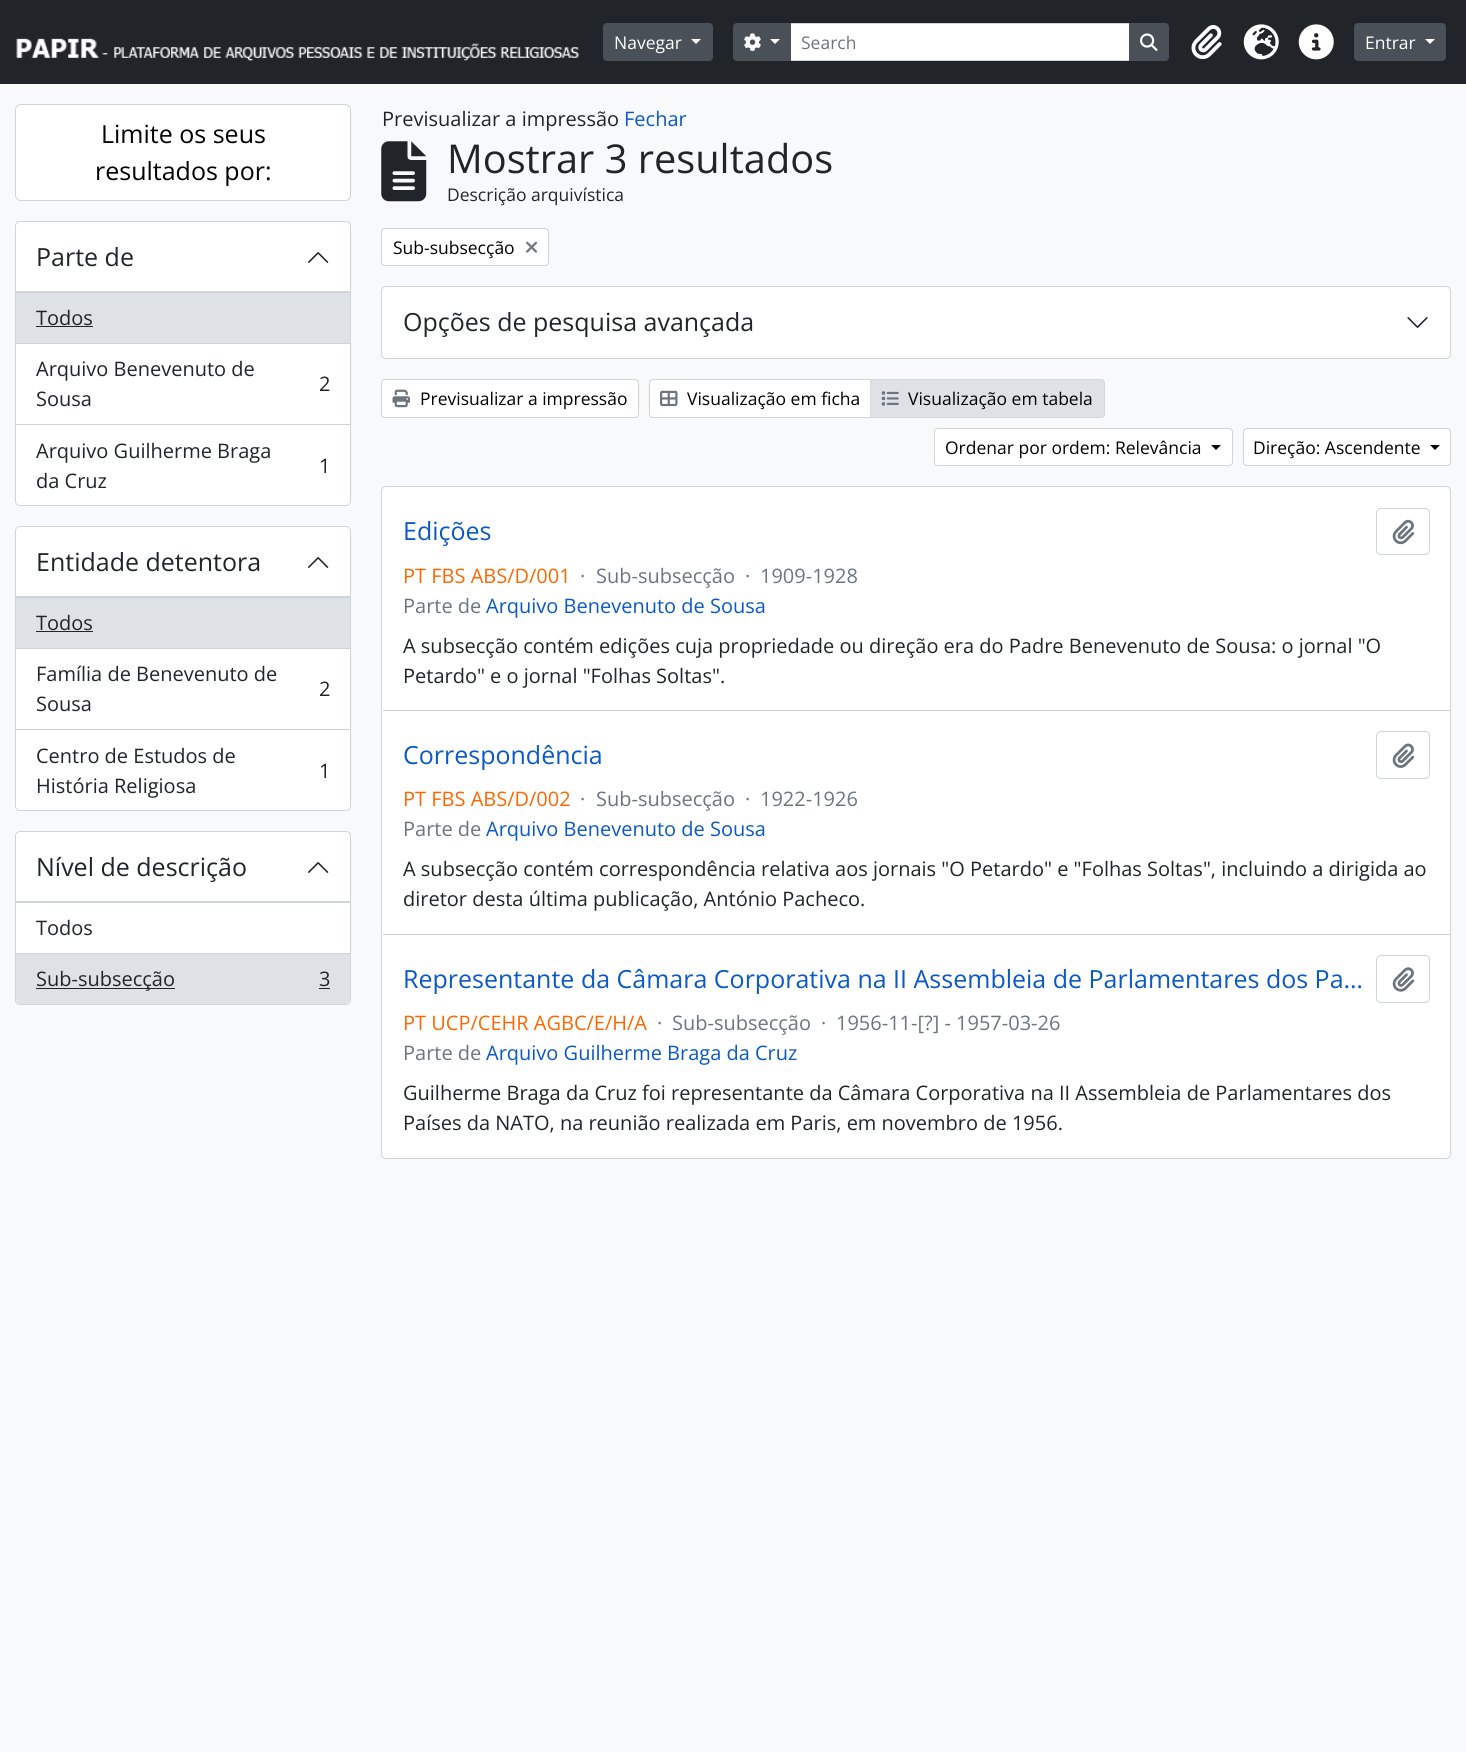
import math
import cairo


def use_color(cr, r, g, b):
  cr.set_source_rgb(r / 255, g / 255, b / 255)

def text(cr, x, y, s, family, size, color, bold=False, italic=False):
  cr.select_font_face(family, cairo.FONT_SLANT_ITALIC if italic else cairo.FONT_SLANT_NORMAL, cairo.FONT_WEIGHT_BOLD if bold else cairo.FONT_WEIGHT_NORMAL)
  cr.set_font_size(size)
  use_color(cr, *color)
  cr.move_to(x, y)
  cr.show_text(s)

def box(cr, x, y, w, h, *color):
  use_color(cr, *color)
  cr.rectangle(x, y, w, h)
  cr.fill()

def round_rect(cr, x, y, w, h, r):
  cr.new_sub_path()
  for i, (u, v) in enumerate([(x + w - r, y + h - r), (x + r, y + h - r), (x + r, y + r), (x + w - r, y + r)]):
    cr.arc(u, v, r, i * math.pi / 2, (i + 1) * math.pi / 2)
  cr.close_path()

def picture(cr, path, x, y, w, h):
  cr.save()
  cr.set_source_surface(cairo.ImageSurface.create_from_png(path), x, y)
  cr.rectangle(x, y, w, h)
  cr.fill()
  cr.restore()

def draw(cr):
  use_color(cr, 248, 249, 250)
  cr.paint()
  box(cr, 0, 0, 1466, 84, 33, 37, 41)
  picture(cr, "img_01.png", 16, 38, 564, 23)
  use_color(cr, 73, 80, 87)
  round_rect(cr, 603.5, 23.5, 109, 37, 3.5)
  cr.fill_preserve()
  cr.set_line_width(1)
  cr.stroke()
  use_color(cr, 255, 255, 255)
  cr.new_path()
  cr.move_to(691, 39)
  cr.line_to(701, 39)
  cr.line_to(696, 44)
  cr.close_path()
  cr.fill()
  cr.rectangle(790.5, 23.5, 339, 37)
  cr.fill_preserve()
  use_color(cr, 206, 212, 218)
  cr.stroke()
  use_color(cr, 73, 80, 87)
  cr.new_path()
  cr.move_to(737, 23.5)
  cr.line_to(790.5, 23.5)
  cr.line_to(790.5, 60.5)
  cr.line_to(737, 60.5)
  cr.curve_to(735, 60.5, 733.5, 59, 733.5, 57)
  cr.line_to(733.5, 27)
  cr.curve_to(733.5, 25, 735, 23.5, 737, 23.5)
  cr.close_path()
  cr.fill_preserve()
  cr.stroke()
  picture(cr, "img_02.png", 744, 33, 17, 18)
  use_color(cr, 255, 255, 255)
  cr.new_path()
  cr.move_to(770, 39)
  cr.line_to(780, 39)
  cr.line_to(775, 44)
  cr.close_path()
  cr.fill()
  use_color(cr, 73, 80, 87)
  cr.new_path()
  cr.move_to(1129.5, 23.5)
  cr.line_to(1165, 23.5)
  cr.curve_to(1167, 23.5, 1168.5, 25, 1168.5, 27)
  cr.line_to(1168.5, 57)
  cr.curve_to(1168.5, 59, 1167, 60.5, 1165, 60.5)
  cr.line_to(1129.5, 60.5)
  cr.close_path()
  cr.fill_preserve()
  cr.stroke()
  picture(cr, "img_03.png", 1140, 33, 18, 18)
  picture(cr, "img_04.png", 1191, 25, 31, 35)
  picture(cr, "img_05.png", 1243, 24, 36, 36)
  picture(cr, "img_06.png", 1298, 24, 36, 36)
  round_rect(cr, 1354.5, 23.5, 91, 37, 3.5)
  cr.fill_preserve()
  cr.stroke()
  use_color(cr, 255, 255, 255)
  cr.new_path()
  cr.move_to(1425, 39)
  cr.line_to(1435, 39)
  cr.line_to(1430, 44)
  cr.close_path()
  cr.fill()
  round_rect(cr, 15.5, 104.5, 335, 96, 5.5)
  cr.fill_preserve()
  use_color(cr, 206, 212, 218)
  cr.stroke()
  use_color(cr, 255, 255, 255)
  round_rect(cr, 15.5, 221.5, 335, 284, 4.5)
  cr.fill_preserve()
  use_color(cr, 206, 212, 218)
  cr.stroke()
  box(cr, 16, 291, 334, 2, 206, 212, 218)
  picture(cr, "img_07.png", 308, 252, 21, 11)
  box(cr, 16, 293, 334, 50, 222, 226, 230)
  box(cr, 16, 343, 334, 1, 206, 212, 218)
  box(cr, 36, 326, 57, 1, 33, 37, 41)
  box(cr, 16, 424, 334, 1, 206, 212, 218)
  use_color(cr, 255, 255, 255)
  cr.new_path()
  cr.move_to(16, 425)
  cr.line_to(350, 425)
  cr.line_to(350, 500)
  cr.curve_to(350, 503, 348, 505, 345, 505)
  cr.line_to(21, 505)
  cr.curve_to(18, 505, 16, 503, 16, 500)
  cr.close_path()
  cr.fill()
  round_rect(cr, 15.5, 526.5, 335, 284, 4.5)
  cr.fill_preserve()
  use_color(cr, 206, 212, 218)
  cr.stroke()
  box(cr, 16, 596, 334, 2, 206, 212, 218)
  picture(cr, "img_07.png", 308, 557, 21, 11)
  box(cr, 16, 598, 334, 50, 222, 226, 230)
  box(cr, 16, 648, 334, 1, 206, 212, 218)
  box(cr, 36, 631, 57, 1, 33, 37, 41)
  box(cr, 16, 729, 334, 1, 206, 212, 218)
  use_color(cr, 255, 255, 255)
  cr.new_path()
  cr.move_to(16, 730)
  cr.line_to(350, 730)
  cr.line_to(350, 805)
  cr.curve_to(350, 808, 348, 810, 345, 810)
  cr.line_to(21, 810)
  cr.curve_to(18, 810, 16, 808, 16, 805)
  cr.close_path()
  cr.fill()
  round_rect(cr, 15.5, 831.5, 335, 173, 4.5)
  cr.fill_preserve()
  use_color(cr, 206, 212, 218)
  cr.stroke()
  box(cr, 16, 901, 334, 2, 206, 212, 218)
  picture(cr, "img_07.png", 308, 862, 21, 11)
  box(cr, 16, 953, 334, 1, 206, 212, 218)
  use_color(cr, 222, 226, 230)
  cr.new_path()
  cr.move_to(16, 954)
  cr.line_to(350, 954)
  cr.line_to(350, 999)
  cr.curve_to(350, 1002, 348, 1004, 345, 1004)
  cr.line_to(21, 1004)
  cr.curve_to(18, 1004, 16, 1002, 16, 999)
  cr.close_path()
  cr.fill()
  box(cr, 36, 988, 139, 1, 33, 37, 41)
  box(cr, 319, 988, 11, 1, 33, 37, 41)
  picture(cr, "img_08.png", 381, 141, 46, 61)
  use_color(cr, 255, 255, 255)
  round_rect(cr, 381.5, 228.5, 167, 37, 3.5)
  cr.fill_preserve()
  use_color(cr, 206, 212, 218)
  cr.stroke()
  picture(cr, "img_09.png", 526, 241, 11, 12)
  use_color(cr, 255, 255, 255)
  round_rect(cr, 381.5, 286.5, 1069, 72, 4.5)
  cr.fill_preserve()
  use_color(cr, 206, 212, 218)
  cr.stroke()
  use_color(cr, 255, 255, 255)
  round_rect(cr, 383, 288, 1067, 70, 4)
  cr.fill()
  picture(cr, "img_10.png", 1407, 317, 21, 11)
  round_rect(cr, 381.5, 379.5, 257, 38, 3.5)
  cr.fill_preserve()
  use_color(cr, 206, 212, 218)
  cr.stroke()
  picture(cr, "img_11.png", 392, 389, 18, 19)
  use_color(cr, 255, 255, 255)
  cr.new_path()
  cr.move_to(653, 379.5)
  cr.line_to(870.5, 379.5)
  cr.line_to(870.5, 417.5)
  cr.line_to(653, 417.5)
  cr.curve_to(651, 417.5, 649.5, 416, 649.5, 414)
  cr.line_to(649.5, 383)
  cr.curve_to(649.5, 381, 651, 379.5, 653, 379.5)
  cr.close_path()
  cr.fill_preserve()
  use_color(cr, 206, 212, 218)
  cr.stroke()
  picture(cr, "img_12.png", 660, 390, 18, 17)
  use_color(cr, 222, 226, 230)
  cr.new_path()
  cr.move_to(870.5, 379.5)
  cr.line_to(1101, 379.5)
  cr.curve_to(1103, 379.5, 1104.5, 381, 1104.5, 383)
  cr.line_to(1104.5, 414)
  cr.curve_to(1104.5, 416, 1103, 417.5, 1101, 417.5)
  cr.line_to(870.5, 417.5)
  cr.close_path()
  cr.fill_preserve()
  use_color(cr, 211, 216, 222)
  cr.stroke()
  picture(cr, "img_13.png", 881, 391, 18, 15)
  use_color(cr, 255, 255, 255)
  round_rect(cr, 934.5, 428.5, 298, 37, 3.5)
  cr.fill_preserve()
  use_color(cr, 206, 212, 218)
  cr.stroke()
  use_color(cr, 0, 0, 0)
  cr.new_path()
  cr.move_to(1211, 445)
  cr.line_to(1221, 445)
  cr.line_to(1216, 450)
  cr.close_path()
  cr.fill()
  use_color(cr, 255, 255, 255)
  round_rect(cr, 1243.5, 428.5, 207, 37, 3.5)
  cr.fill_preserve()
  use_color(cr, 206, 212, 218)
  cr.stroke()
  use_color(cr, 0, 0, 0)
  cr.new_path()
  cr.move_to(1430, 445)
  cr.line_to(1440, 445)
  cr.line_to(1435, 450)
  cr.close_path()
  cr.fill()
  use_color(cr, 255, 255, 255)
  round_rect(cr, 381.5, 486.5, 1069, 672, 4.5)
  cr.fill_preserve()
  use_color(cr, 206, 212, 218)
  cr.stroke()
  box(cr, 383, 710, 1067, 1, 206, 212, 218)
  round_rect(cr, 1376.5, 508.5, 53, 46, 4.5)
  cr.stroke()
  picture(cr, "img_14.png", 1392, 519, 23, 26)
  box(cr, 383, 934, 1067, 1, 206, 212, 218)
  round_rect(cr, 1376.5, 731.5, 53, 47, 4.5)
  cr.stroke()
  picture(cr, "img_15.png", 1392, 743, 23, 25)
  round_rect(cr, 1376.5, 955.5, 53, 47, 4.5)
  cr.stroke()
  picture(cr, "img_16.png", 1392, 967, 23, 25)
  text(cr, 614, 49, "Navegar", "Open Sans", 17.5, (255, 255, 255))
  text(cr, 801, 49, "Search", "Open Sans", 17.5, (108, 117, 125))
  text(cr, 1365, 49, "Entrar", "Open Sans", 17.5, (255, 255, 255))
  text(cr, 101, 143, "Limite os seus", "Open Sans", 25, (0, 0, 0))
  text(cr, 95, 180, "resultados por:", "Open Sans", 25, (0, 0, 0))
  text(cr, 36, 266, "Parte de", "Open Sans", 25, (33, 37, 41))
  text(cr, 36, 325, "Todos", "Open Sans", 20, (33, 37, 41))
  text(cr, 36, 376, "Arquivo Benevenuto de", "Open Sans", 20, (33, 37, 41))
  text(cr, 319, 391, "2", "Open Sans", 20, (33, 37, 41))
  text(cr, 36, 406, "Sousa", "Open Sans", 20, (33, 37, 41))
  text(cr, 36, 458, "Arquivo Guilherme Braga", "Open Sans", 20, (33, 37, 41))
  text(cr, 319, 473, "1", "Open Sans", 20, (33, 37, 41))
  text(cr, 36, 488, "da Cruz", "Open Sans", 20, (33, 37, 41))
  text(cr, 36, 571, "Entidade detentora", "Open Sans", 25, (33, 37, 41))
  text(cr, 36, 630, "Todos", "Open Sans", 20, (33, 37, 41))
  text(cr, 36, 681, "Família de Benevenuto de", "Open Sans", 20, (33, 37, 41))
  text(cr, 319, 696, "2", "Open Sans", 20, (33, 37, 41))
  text(cr, 36, 711, "Sousa", "Open Sans", 20, (33, 37, 41))
  text(cr, 36, 763, "Centro de Estudos de", "Open Sans", 20, (33, 37, 41))
  text(cr, 319, 778, "1", "Open Sans", 20, (33, 37, 41))
  text(cr, 36, 793, "História Religiosa", "Open Sans", 20, (33, 37, 41))
  text(cr, 36, 876, "Nível de descrição", "Open Sans", 25, (33, 37, 41))
  text(cr, 36, 935, "Todos", "Open Sans", 20, (33, 37, 41))
  text(cr, 36, 986, "Sub-subsecção", "Open Sans", 20, (33, 37, 41))
  text(cr, 319, 986, "3", "Open Sans", 20, (33, 37, 41))
  text(cr, 382, 126, "Previsualizar a impressão", "Open Sans", 20, (33, 37, 41))
  text(cr, 624, 126, "Fechar", "Open Sans", 20, (10, 88, 202))
  text(cr, 447, 173, "Mostrar 3 resultados", "Open Sans", 39.75, (33, 37, 41))
  text(cr, 447, 201, "Descrição arquivística", "Open Sans", 17.5, (33, 37, 41))
  text(cr, 393, 254, "Sub-subsecção", "Open Sans", 17.5, (0, 0, 0))
  text(cr, 403, 331, "Opções de pesquisa avançada", "Open Sans", 25, (33, 37, 41))
  text(cr, 420, 405, "Previsualizar a impressão", "Open Sans", 17.5, (0, 0, 0))
  text(cr, 687, 405, "Visualização em ficha", "Open Sans", 17.5, (0, 0, 0))
  text(cr, 908, 405, "Visualização em tabela", "Open Sans", 17.5, (0, 0, 0))
  text(cr, 945, 454, "Ordenar por ordem: Relevância", "Open Sans", 17.5, (0, 0, 0))
  text(cr, 1253, 454, "Direção: Ascendente", "Open Sans", 17.5, (0, 0, 0))
  text(cr, 403, 540, "Edições", "Open Sans", 25, (10, 88, 202))
  text(cr, 403, 583, "PT FBS ABS/D/001", "Open Sans", 20, (255, 102, 0))
  text(cr, 580, 583, "·", "Open Sans", 20, (108, 117, 125))
  text(cr, 596, 583, "Sub-subsecção", "Open Sans", 20, (108, 117, 125))
  text(cr, 745, 583, "·", "Open Sans", 20, (108, 117, 125))
  text(cr, 760, 583, "1909-1928", "Open Sans", 20, (108, 117, 125))
  text(cr, 403, 613, "Parte de", "Open Sans", 20, (108, 117, 125))
  text(cr, 486, 613, "Arquivo Benevenuto de Sousa", "Open Sans", 20, (10, 88, 202))
  text(cr, 403, 653, "A subsecção contém edições cuja propriedade ou direção era do Padre Benevenuto de Sousa: o jornal \"O", "Open Sans", 20, (33, 37, 41))
  text(cr, 403, 683, "Petardo\" e o jornal \"Folhas Soltas\".", "Open Sans", 20, (33, 37, 41))
  text(cr, 403, 764, "Correspondência", "Open Sans", 25, (10, 88, 202))
  text(cr, 403, 806, "PT FBS ABS/D/002", "Open Sans", 20, (255, 102, 0))
  text(cr, 580, 806, "·", "Open Sans", 20, (108, 117, 125))
  text(cr, 596, 806, "Sub-subsecção", "Open Sans", 20, (108, 117, 125))
  text(cr, 745, 806, "·", "Open Sans", 20, (108, 117, 125))
  text(cr, 760, 806, "1922-1926", "Open Sans", 20, (108, 117, 125))
  text(cr, 403, 836, "Parte de", "Open Sans", 20, (108, 117, 125))
  text(cr, 486, 836, "Arquivo Benevenuto de Sousa", "Open Sans", 20, (10, 88, 202))
  text(cr, 403, 876, "A subsecção contém correspondência relativa aos jornais \"O Petardo\" e \"Folhas Soltas\", incluindo a dirigida ao", "Open Sans", 20, (33, 37, 41))
  text(cr, 403, 906, "diretor desta última publicação, António Pacheco.", "Open Sans", 20, (33, 37, 41))
  text(cr, 403, 988, "Representante da Câmara Corporativa na II Assembleia de Parlamentares dos Pa…", "Open Sans", 25, (10, 88, 202))
  text(cr, 403, 1030, "PT UCP/CEHR AGBC/E/H/A", "Open Sans", 20, (255, 102, 0))
  text(cr, 657, 1030, "·", "Open Sans", 20, (108, 117, 125))
  text(cr, 672, 1030, "Sub-subsecção", "Open Sans", 20, (108, 117, 125))
  text(cr, 821, 1030, "·", "Open Sans", 20, (108, 117, 125))
  text(cr, 836, 1030, "1956-11-[?] - 1957-03-26", "Open Sans", 20, (108, 117, 125))
  text(cr, 403, 1060, "Parte de", "Open Sans", 20, (108, 117, 125))
  text(cr, 486, 1060, "Arquivo Guilherme Braga da Cruz", "Open Sans", 20, (10, 88, 202))
  text(cr, 403, 1100, "Guilherme Braga da Cruz foi representante da Câmara Corporativa na II Assembleia de Parlamentares dos", "Open Sans", 20, (33, 37, 41))
  text(cr, 403, 1130, "Países da NATO, na reunião realizada em Paris, em novembro de 1956.", "Open Sans", 20, (33, 37, 41))


surface = cairo.ImageSurface(cairo.FORMAT_RGB24, 1466, 1752)
cr = cairo.Context(surface)
options = cairo.FontOptions()
options.set_hint_metrics(cairo.HINT_METRICS_OFF)
options.set_hint_style(cairo.HINT_STYLE_NONE)
cr.set_font_options(options)
cr.set_miter_limit(4)
draw(cr)
surface.write_to_png("out.png")
